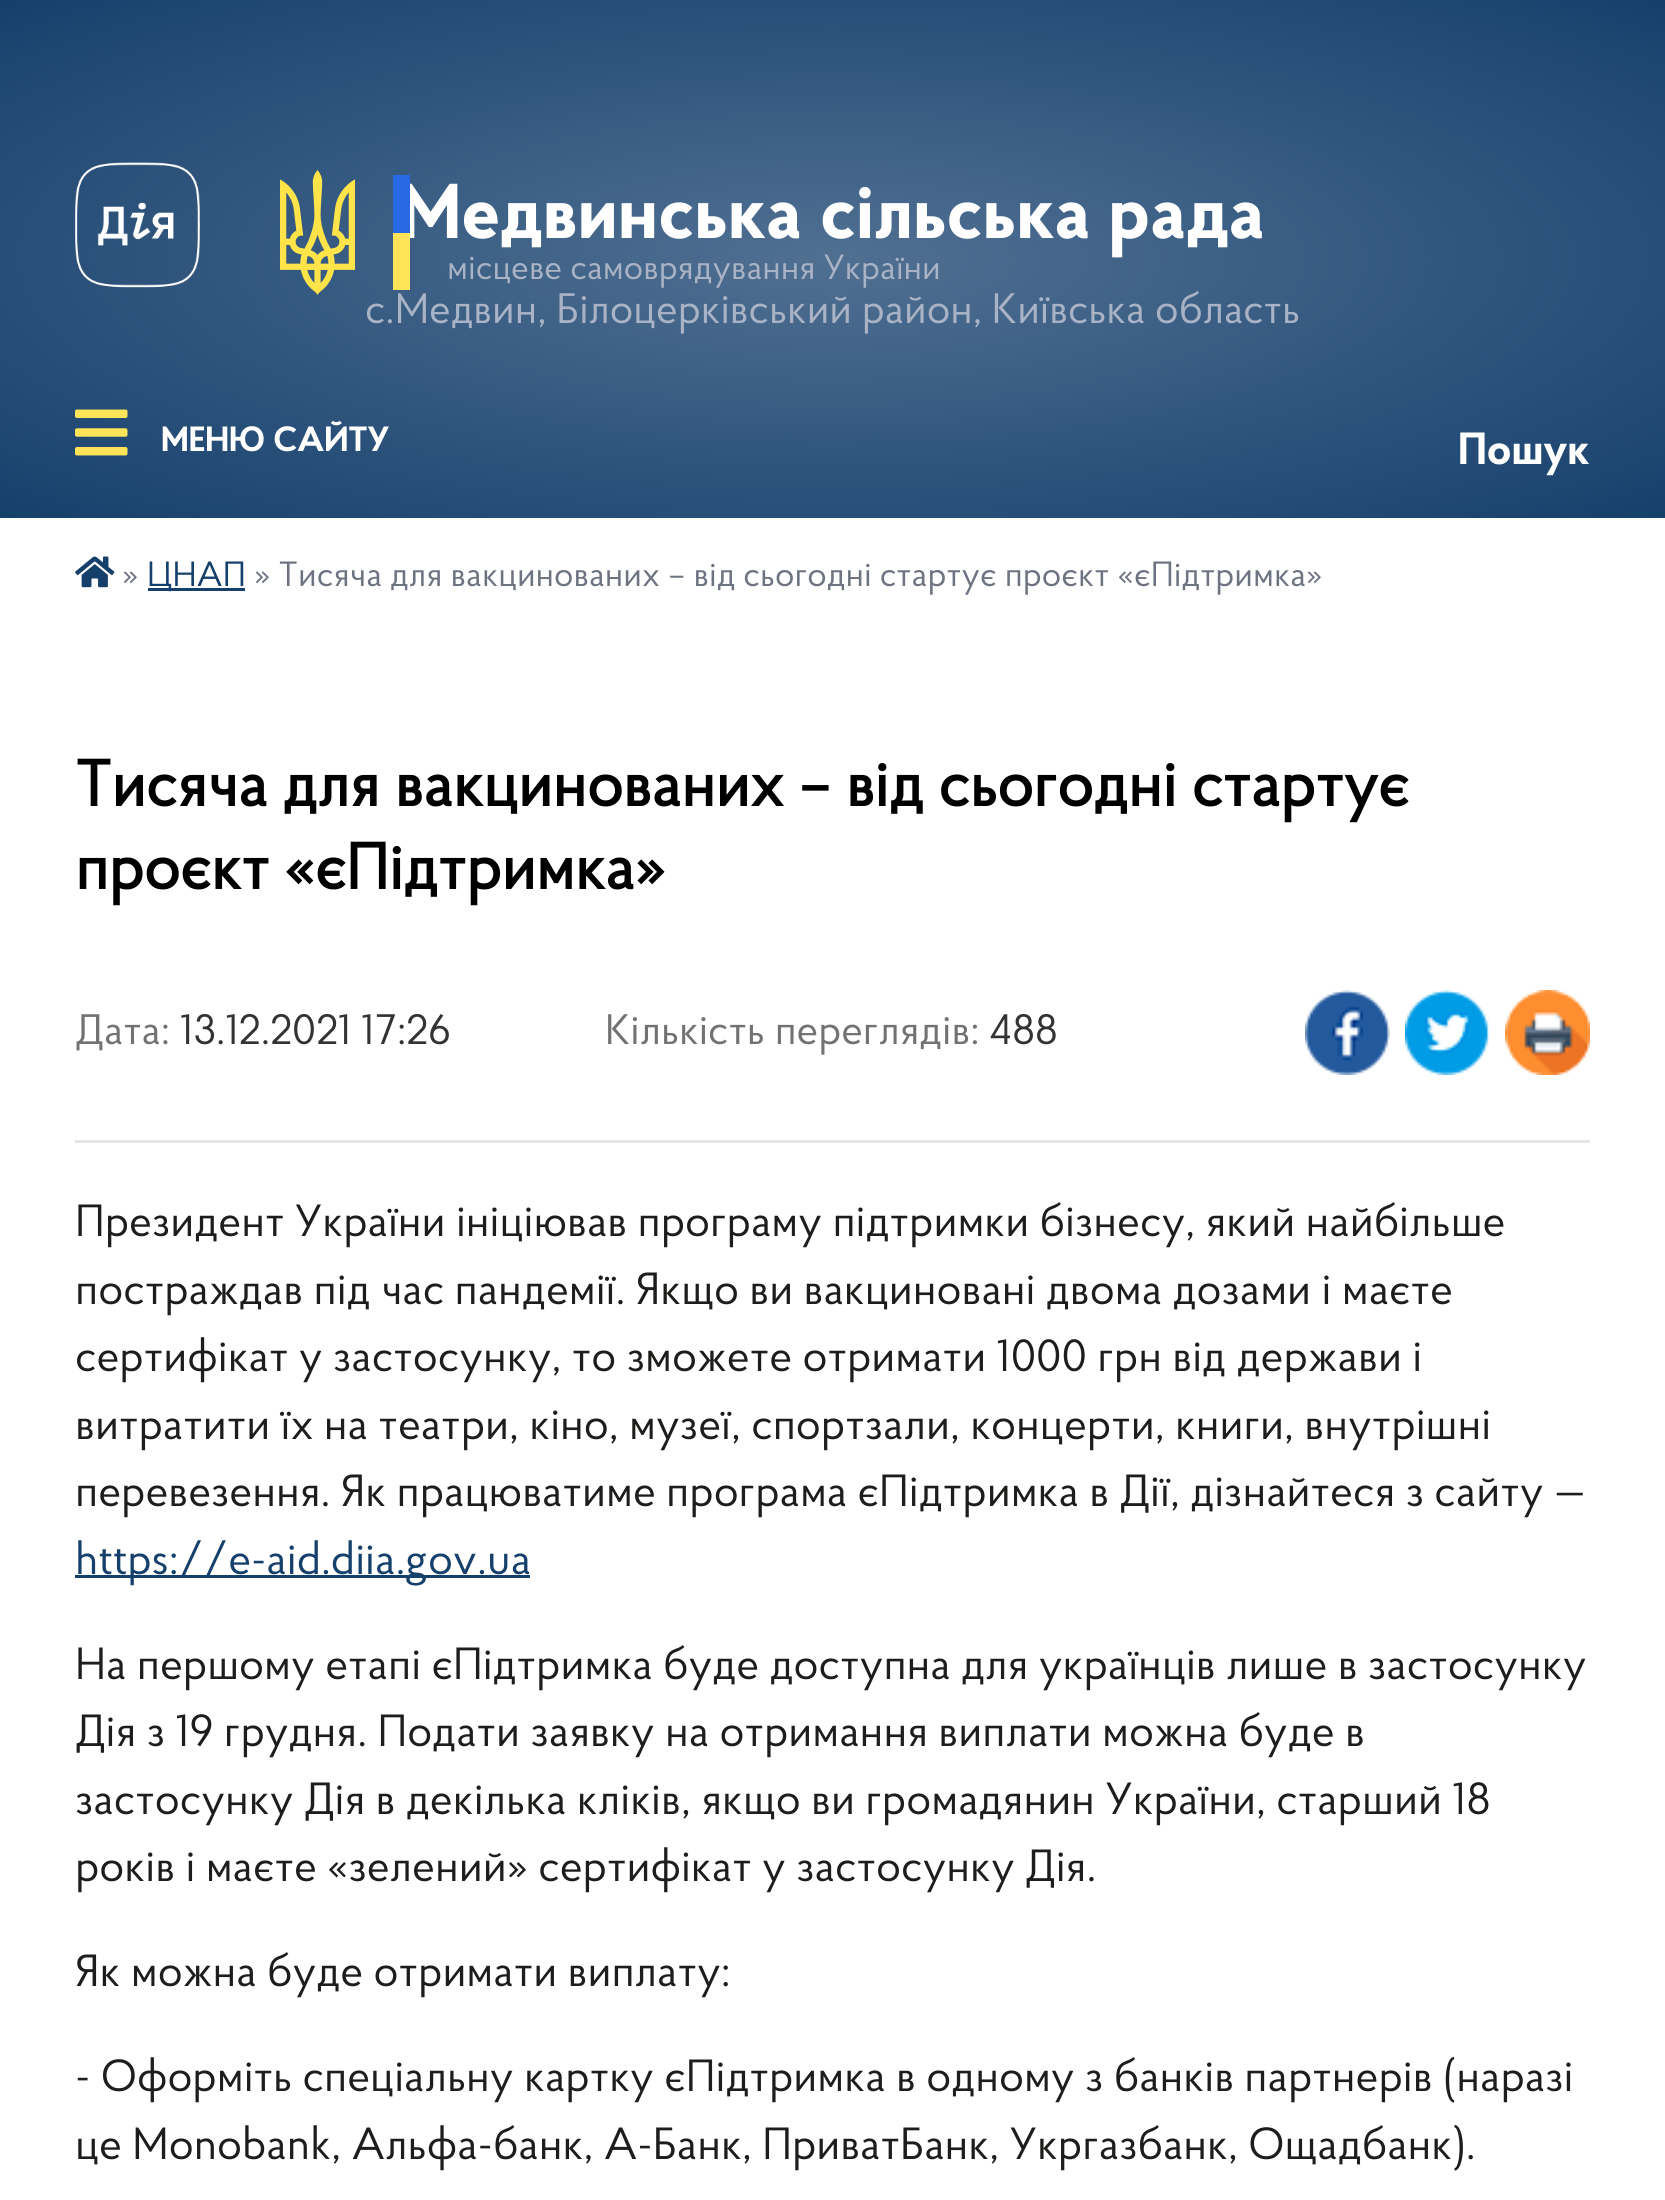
import math
import cairo


def use_color(cr, r, g, b):
  cr.set_source_rgb(r / 255, g / 255, b / 255)

def text(cr, x, y, s, family, size, color, bold=False, italic=False):
  cr.select_font_face(family, cairo.FONT_SLANT_ITALIC if italic else cairo.FONT_SLANT_NORMAL, cairo.FONT_WEIGHT_BOLD if bold else cairo.FONT_WEIGHT_NORMAL)
  cr.set_font_size(size)
  use_color(cr, *color)
  cr.move_to(x, y)
  cr.show_text(s)

def box(cr, x, y, w, h, *color):
  use_color(cr, *color)
  cr.rectangle(x, y, w, h)
  cr.fill()

def picture(cr, path, x, y, w, h):
  cr.save()
  cr.set_source_surface(cairo.ImageSurface.create_from_png(path), x, y)
  cr.rectangle(x, y, w, h)
  cr.fill()
  cr.restore()

def draw(cr):
  use_color(cr, 255, 255, 255)
  cr.paint()
  gradient = cairo.RadialGradient(0, 0, 0, 0, 0, 1)
  gradient.set_matrix(cairo.Matrix(1 / 1177, 0, 0, 1 / 366, -1 * 833 / 1177, -1 * 259 / 366))
  gradient.add_color_stop_rgba(0, 0.314, 0.439, 0.573, 1)
  gradient.add_color_stop_rgba(1, 0.086, 0.251, 0.424, 1)
  cr.set_source(gradient)
  cr.rectangle(0, 0, 1665, 518)
  cr.fill()
  picture(cr, "img_01.png", 75, 162, 125, 126)
  picture(cr, "img_02.png", 280, 170, 75, 125)
  picture(cr, "img_03.png", 75, 409, 53, 47)
  picture(cr, "img_04.png", 75, 556, 40, 32)
  box(cr, 148, 588, 97, 3, 22, 64, 108)
  picture(cr, "img_05.png", 1305, 990, 85, 85)
  picture(cr, "img_06.png", 1405, 990, 84, 85)
  picture(cr, "img_07.png", 1505, 990, 85, 85)
  box(cr, 75, 1140, 1515, 3, 229, 229, 229)
  box(cr, 75, 1575, 455, 3, 22, 64, 108)
  text(cr, 400, 238, "Медвинська сільська рада", "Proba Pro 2", 77.5, (255, 255, 255), bold=True)
  text(cr, 365, 323, "с.Медвин, Білоцерківський район, Київська область", "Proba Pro", 42.5, (170, 179, 198))
  box(cr, 393, 175, 17, 58, 38, 105, 227)
  box(cr, 393, 233, 17, 57, 255, 227, 88)
  text(cr, 447, 279, "місцеве самоврядування України", "Proba Pro", 35, (170, 179, 198))
  text(cr, 161, 451, "МЕНЮ САЙТУ", "Proba Pro 2", 35, (255, 255, 255), bold=True)
  text(cr, 1458, 464, "Пошук", "Proba Pro 2", 45, (255, 255, 255), bold=True)
  text(cr, 122, 586, "»", "Proba Pro", 35, (109, 115, 129))
  text(cr, 147, 586, "ЦНАП", "Proba Pro", 35, (22, 64, 108))
  text(cr, 254, 586, "» Тисяча для вакцинованих – від сьогодні стартує проєкт «єПідтримка»", "Proba Pro", 35, (109, 115, 129))
  text(cr, 75, 806, "Тисяча для вакцинованих – від сьогодні стартує", "Proba Pro", 65, (0, 0, 0), bold=True)
  text(cr, 75, 889, "проєкт «єПідтримка»", "Proba Pro", 65, (0, 0, 0), bold=True)
  text(cr, 75, 1044, "Дата:", "Proba Pro", 42.5, (114, 114, 114))
  text(cr, 180, 1044, "13.12.2021 17:26", "Proba Pro", 42.5, (51, 51, 51))
  text(cr, 605, 1044, "Кількість переглядів:", "Proba Pro", 42.5, (114, 114, 114))
  text(cr, 989, 1044, "488", "Proba Pro", 42.5, (51, 51, 51))
  text(cr, 75, 1236, "Президент України ініціював програму підтримки бізнесу, який найбільше", "Proba Pro", 45, (29, 29, 27))
  text(cr, 75, 1304, "постраждав під час пандемії. Якщо ви вакциновані двома дозами і маєте", "Proba Pro", 45, (29, 29, 27))
  text(cr, 75, 1371, "сертифікат у застосунку, то зможете отримати 1000 грн від держави і", "Proba Pro", 45, (29, 29, 27))
  text(cr, 75, 1439, "витратити їх на театри, кіно, музеї, спортзали, концерти, книги, внутрішні", "Proba Pro", 45, (29, 29, 27))
  text(cr, 75, 1506, "перевезення. Як працюватиме програма єПідтримка в Дії, дізнайтеся з сайту —", "Proba Pro", 45, (29, 29, 27))
  text(cr, 75, 1574, "https://e-aid.diia.gov.ua", "Proba Pro", 45, (22, 64, 108))
  text(cr, 75, 1679, "На першому етапі єПідтримка буде доступна для українців лише в застосунку", "Proba Pro", 45, (29, 29, 27))
  text(cr, 75, 1746, "Дія з 19 грудня. Подати заявку на отримання виплати можна буде в", "Proba Pro", 45, (29, 29, 27))
  text(cr, 75, 1814, "застосунку Дія в декілька кліків, якщо ви громадянин України, старший 18", "Proba Pro", 45, (29, 29, 27))
  text(cr, 75, 1881, "років і маєте «зелений» сертифікат у застосунку Дія.", "Proba Pro", 45, (29, 29, 27))
  text(cr, 75, 1986, "Як можна буде отримати виплату:", "Proba Pro", 45, (29, 29, 27))
  text(cr, 75, 2091, "- Оформіть спеціальну картку єПідтримка в одному з банків партнерів (наразі", "Proba Pro", 45, (29, 29, 27))
  text(cr, 75, 2159, "це Monobank, Альфа-банк, А-Банк, ПриватБанк, Укргазбанк, Ощадбанк).", "Proba Pro", 45, (29, 29, 27))


surface = cairo.ImageSurface(cairo.FORMAT_RGB24, 1665, 2200)
cr = cairo.Context(surface)
options = cairo.FontOptions()
options.set_hint_metrics(cairo.HINT_METRICS_OFF)
options.set_hint_style(cairo.HINT_STYLE_NONE)
cr.set_font_options(options)
cr.set_miter_limit(4)
draw(cr)
surface.write_to_png("out.png")
